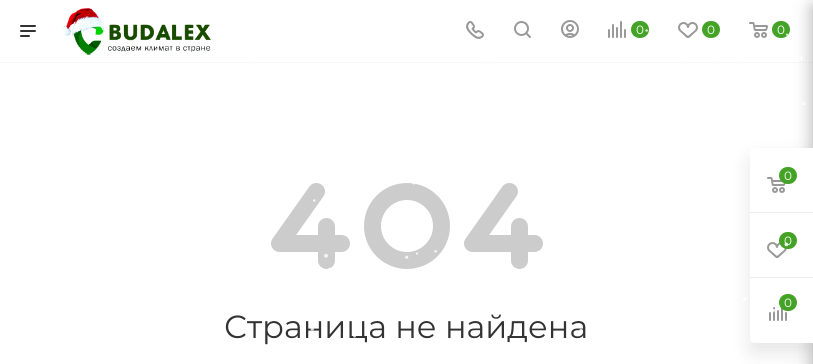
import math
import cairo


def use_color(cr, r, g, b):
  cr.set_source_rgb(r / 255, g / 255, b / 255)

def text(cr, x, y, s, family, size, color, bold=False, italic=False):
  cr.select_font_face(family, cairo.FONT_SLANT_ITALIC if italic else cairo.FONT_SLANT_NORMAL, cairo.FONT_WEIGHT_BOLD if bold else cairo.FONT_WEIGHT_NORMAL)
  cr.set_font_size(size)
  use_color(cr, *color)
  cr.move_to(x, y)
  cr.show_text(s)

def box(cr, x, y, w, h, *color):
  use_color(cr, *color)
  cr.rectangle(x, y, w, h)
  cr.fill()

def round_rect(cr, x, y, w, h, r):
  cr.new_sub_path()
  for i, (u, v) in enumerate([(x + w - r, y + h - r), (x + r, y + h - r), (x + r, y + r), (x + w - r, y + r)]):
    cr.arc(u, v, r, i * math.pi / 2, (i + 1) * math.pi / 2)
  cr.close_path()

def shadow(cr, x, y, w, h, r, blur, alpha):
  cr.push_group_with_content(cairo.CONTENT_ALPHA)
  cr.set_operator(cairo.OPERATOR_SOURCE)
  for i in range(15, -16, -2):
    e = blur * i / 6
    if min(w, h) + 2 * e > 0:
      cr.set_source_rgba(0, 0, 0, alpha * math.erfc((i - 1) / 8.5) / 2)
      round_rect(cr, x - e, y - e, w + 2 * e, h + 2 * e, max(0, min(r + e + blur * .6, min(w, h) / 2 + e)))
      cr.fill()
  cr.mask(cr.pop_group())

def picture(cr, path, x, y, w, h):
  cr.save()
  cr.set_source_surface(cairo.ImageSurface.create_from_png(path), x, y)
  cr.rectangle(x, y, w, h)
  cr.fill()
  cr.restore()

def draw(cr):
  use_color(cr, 255, 255, 255)
  cr.paint()
  box(cr, 0, 62, 813, 1, 248, 248, 248)
  picture(cr, "img_01.png", 20, 25, 16, 12)
  picture(cr, "img_02.png", 62, 8, 149, 47)
  picture(cr, "img_03.png", 466, 21, 18, 18)
  picture(cr, "img_04.png", 514, 21, 17, 17)
  picture(cr, "img_05.png", 561, 20, 18, 18)
  picture(cr, "img_06.png", 608, 21, 18, 17)
  use_color(cr, 68, 163, 38)
  round_rect(cr, 631, 21, 18, 17, 8.5)
  cr.fill()
  picture(cr, "img_07.png", 678, 22, 20, 16)
  round_rect(cr, 702, 21, 18, 17, 8.5)
  cr.fill()
  picture(cr, "img_08.png", 749, 22, 19, 16)
  round_rect(cr, 772, 21, 18, 17, 8.5)
  cr.fill()
  picture(cr, "img_09.png", 271, 183, 272, 86)
  use_color(cr, 44, 44, 44)
  shadow(cr, 813, 6, 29, 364, 2, 9, 0.4)
  use_color(cr, 0, 0, 0)
  shadow(cr, 750, 158, 63, 195, 4, 10, 0.1)
  use_color(cr, 255, 255, 255)
  cr.new_path()
  cr.move_to(754, 148)
  cr.line_to(813, 148)
  cr.line_to(813, 343)
  cr.line_to(754, 343)
  cr.curve_to(752, 343, 750, 341, 750, 339)
  cr.line_to(750, 152)
  cr.curve_to(750, 150, 752, 148, 754, 148)
  cr.close_path()
  cr.fill()
  box(cr, 750, 212, 63, 1, 236, 236, 236)
  picture(cr, "img_08.png", 767, 177, 19, 16)
  use_color(cr, 68, 163, 38)
  round_rect(cr, 779, 167, 18, 17, 8.5)
  cr.fill()
  box(cr, 750, 277, 63, 1, 236, 236, 236)
  picture(cr, "img_07.png", 767, 242, 20, 16)
  use_color(cr, 68, 163, 38)
  round_rect(cr, 779, 232, 18, 17, 8.5)
  cr.fill()
  picture(cr, "img_11.png", 769, 307, 18, 14)
  round_rect(cr, 779, 294, 18, 17, 8.5)
  cr.fill()
  text(cr, 636, 34, "0", "Montserrat", 12, (255, 255, 255))
  text(cr, 707, 34, "0", "Montserrat", 12, (255, 255, 255))
  text(cr, 777, 34, "0", "Montserrat", 12, (255, 255, 255))
  text(cr, 224, 338, "Страница не найдена", "Montserrat", 32, (51, 51, 51))
  text(cr, 784, 180, "0", "Montserrat", 12, (255, 255, 255))
  text(cr, 784, 245, "0", "Montserrat", 12, (255, 255, 255))
  text(cr, 784, 307, "0", "Montserrat", 12, (255, 255, 255))
  picture(cr, "img_10.png", 75, 29, 731, 309)


surface = cairo.ImageSurface(cairo.FORMAT_RGB24, 813, 364)
cr = cairo.Context(surface)
options = cairo.FontOptions()
options.set_hint_metrics(cairo.HINT_METRICS_OFF)
options.set_hint_style(cairo.HINT_STYLE_NONE)
cr.set_font_options(options)
cr.set_miter_limit(4)
draw(cr)
surface.write_to_png("out.png")
